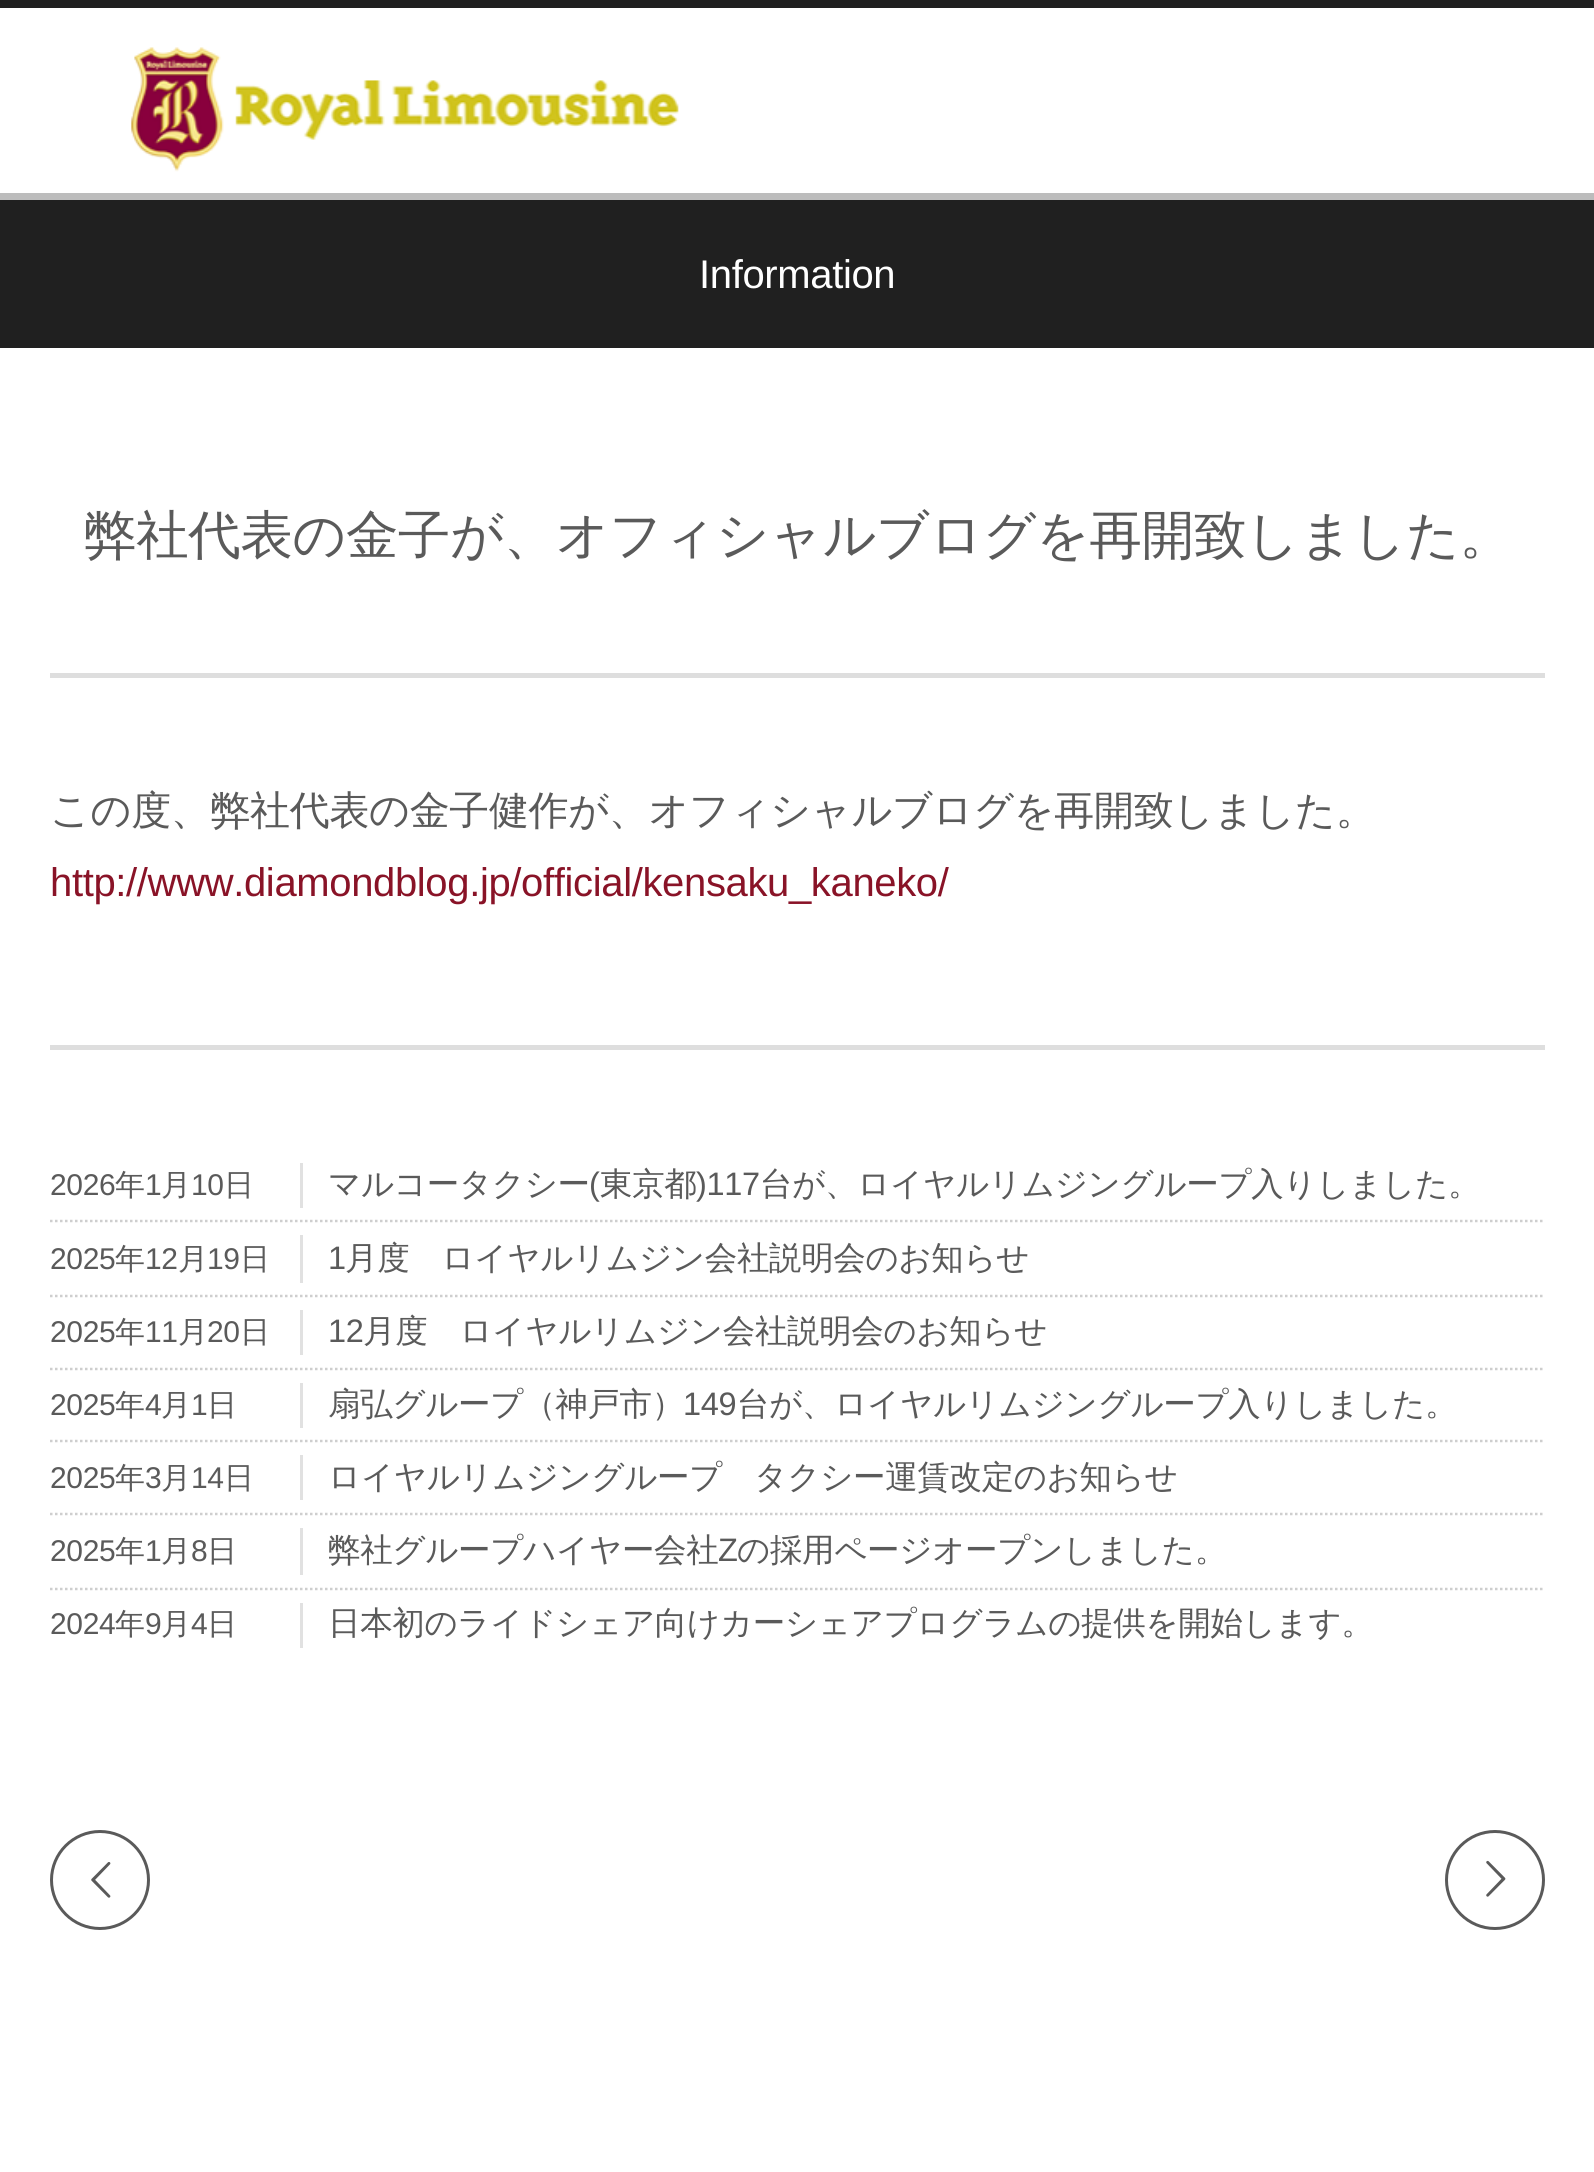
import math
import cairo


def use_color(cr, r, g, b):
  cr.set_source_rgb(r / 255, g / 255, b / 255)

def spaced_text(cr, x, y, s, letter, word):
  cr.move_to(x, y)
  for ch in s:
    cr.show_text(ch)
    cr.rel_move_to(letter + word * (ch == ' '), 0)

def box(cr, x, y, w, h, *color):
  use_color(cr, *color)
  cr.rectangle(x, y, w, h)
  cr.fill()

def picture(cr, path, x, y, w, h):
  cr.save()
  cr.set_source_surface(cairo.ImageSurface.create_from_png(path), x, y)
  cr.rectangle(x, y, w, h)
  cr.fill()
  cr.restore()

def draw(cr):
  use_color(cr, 255, 255, 255)
  cr.paint()
  box(cr, 0, 193, 1594, 7, 188, 188, 188)
  box(cr, 0, 0, 1594, 8, 32, 32, 32)
  picture(cr, "img_01.png", 131, 47, 548, 125)
  box(cr, 0, 200, 1594, 148, 32, 32, 32)
  box(cr, 50, 1045, 1495, 5, 222, 222, 222)
  box(cr, 50, 673, 1495, 5, 222, 222, 222)
  cr.new_path()
  cr.move_to(50, 1221)
  cr.line_to(1545, 1221)
  use_color(cr, 206, 206, 206)
  cr.set_line_width(2.5)
  cr.set_dash([2.5, 2.5])
  cr.stroke()
  box(cr, 300, 1163, 3, 45, 225, 225, 225)
  cr.new_path()
  cr.move_to(50, 1296)
  cr.line_to(1545, 1296)
  use_color(cr, 206, 206, 206)
  cr.stroke()
  box(cr, 300, 1235, 3, 48, 225, 225, 225)
  cr.new_path()
  cr.move_to(50, 1369)
  cr.line_to(1545, 1369)
  use_color(cr, 206, 206, 206)
  cr.stroke()
  box(cr, 300, 1310, 3, 45, 225, 225, 225)
  cr.new_path()
  cr.move_to(50, 1441)
  cr.line_to(1545, 1441)
  use_color(cr, 206, 206, 206)
  cr.stroke()
  box(cr, 300, 1383, 3, 45, 225, 225, 225)
  cr.new_path()
  cr.move_to(50, 1514)
  cr.line_to(1545, 1514)
  use_color(cr, 206, 206, 206)
  cr.stroke()
  box(cr, 300, 1455, 3, 45, 225, 225, 225)
  cr.new_path()
  cr.move_to(50, 1589)
  cr.line_to(1545, 1589)
  use_color(cr, 206, 206, 206)
  cr.stroke()
  box(cr, 300, 1528, 3, 47, 225, 225, 225)
  box(cr, 300, 1603, 3, 45, 225, 225, 225)
  cr.arc(100, 1880, 48.5, 0, 2 * math.pi)
  use_color(cr, 90, 90, 90)
  cr.set_line_width(3)
  cr.set_dash([])
  cr.stroke()
  picture(cr, "img_02.png", 91, 1862, 20, 36)
  cr.arc(1495, 1880, 48.5, 0, 2 * math.pi)
  cr.stroke()
  picture(cr, "img_03.png", 1486, 1860, 20, 37)
  cr.select_font_face("Liberation Sans")
  cr.set_font_size(40)
  use_color(cr, 255, 255, 255)
  spaced_text(cr, 699, 288, "Information", -0.35, 0)
  cr.select_font_face("WenQuanYi Zen Hei Medium")
  cr.set_font_size(52.5)
  use_color(cr, 90, 90, 90)
  spaced_text(cr, 84, 553, "弊社代表の金子が、オフィシャルブログを再開致しました。", -0.35, 0)
  cr.set_font_size(40)
  spaced_text(cr, 50, 824, "この度、弊社代表の金子健作が、オフィシャルブログを再開致しました。", -0.35, 0)
  cr.select_font_face("Liberation Sans")
  use_color(cr, 137, 19, 39)
  spaced_text(cr, 50, 896, "http://www.diamondblog.jp/official/kensaku_kaneko/", -0.35, 0)
  cr.set_font_size(30)
  use_color(cr, 90, 90, 90)
  spaced_text(cr, 50, 1195, "2026", -0.35, 0)
  cr.select_font_face("WenQuanYi Zen Hei Medium")
  spaced_text(cr, 115, 1195, "年", -0.35, 0)
  cr.select_font_face("Liberation Sans")
  spaced_text(cr, 145, 1195, "1", -0.35, 0)
  cr.select_font_face("WenQuanYi Zen Hei Medium")
  spaced_text(cr, 161, 1195, "月", -0.35, 0)
  cr.select_font_face("Liberation Sans")
  spaced_text(cr, 191, 1195, "10", -0.35, 0)
  cr.select_font_face("WenQuanYi Zen Hei Medium")
  spaced_text(cr, 224, 1195, "日", -0.35, 0)
  cr.set_font_size(32.5)
  spaced_text(cr, 328, 1195, "マルコータクシー", -0.35, 0)
  cr.select_font_face("Liberation Sans")
  spaced_text(cr, 589, 1195, "(", -0.35, 0)
  cr.select_font_face("WenQuanYi Zen Hei Medium")
  spaced_text(cr, 600, 1195, "東京都", -0.35, 0)
  cr.select_font_face("Liberation Sans")
  spaced_text(cr, 696, 1195, ")117", -0.35, 0)
  cr.select_font_face("WenQuanYi Zen Hei Medium")
  spaced_text(cr, 760, 1195, "台が、ロイヤルリムジングループ入りしました。", -0.35, 0)
  cr.select_font_face("Liberation Sans")
  cr.set_font_size(30)
  spaced_text(cr, 50, 1269, "2025", -0.35, 0)
  cr.select_font_face("WenQuanYi Zen Hei Medium")
  spaced_text(cr, 115, 1269, "年", -0.35, 0)
  cr.select_font_face("Liberation Sans")
  spaced_text(cr, 145, 1269, "12", -0.35, 0)
  cr.select_font_face("WenQuanYi Zen Hei Medium")
  spaced_text(cr, 178, 1269, "月", -0.35, 0)
  cr.select_font_face("Liberation Sans")
  spaced_text(cr, 207, 1269, "19", -0.35, 0)
  cr.select_font_face("WenQuanYi Zen Hei Medium")
  spaced_text(cr, 240, 1269, "日", -0.35, 0)
  cr.select_font_face("Liberation Sans")
  cr.set_font_size(32.5)
  spaced_text(cr, 328, 1269, "1", -0.35, 0)
  cr.select_font_face("WenQuanYi Zen Hei Medium")
  spaced_text(cr, 345, 1269, "月度　ロイヤルリムジン会社説明会のお知らせ", -0.35, 0)
  cr.select_font_face("Liberation Sans")
  cr.set_font_size(30)
  spaced_text(cr, 50, 1342, "2025", -0.35, 0)
  cr.select_font_face("WenQuanYi Zen Hei Medium")
  spaced_text(cr, 115, 1342, "年", -0.35, 0)
  cr.select_font_face("Liberation Sans")
  spaced_text(cr, 145, 1342, "11", -0.35, 0)
  cr.select_font_face("WenQuanYi Zen Hei Medium")
  spaced_text(cr, 178, 1342, "月", -0.35, 0)
  cr.select_font_face("Liberation Sans")
  spaced_text(cr, 207, 1342, "20", -0.35, 0)
  cr.select_font_face("WenQuanYi Zen Hei Medium")
  spaced_text(cr, 240, 1342, "日", -0.35, 0)
  cr.select_font_face("Liberation Sans")
  cr.set_font_size(32.5)
  spaced_text(cr, 328, 1342, "12", -0.35, 0)
  cr.select_font_face("WenQuanYi Zen Hei Medium")
  spaced_text(cr, 363, 1342, "月度　ロイヤルリムジン会社説明会のお知らせ", -0.35, 0)
  cr.select_font_face("Liberation Sans")
  cr.set_font_size(30)
  spaced_text(cr, 50, 1415, "2025", -0.35, 0)
  cr.select_font_face("WenQuanYi Zen Hei Medium")
  spaced_text(cr, 115, 1415, "年", -0.35, 0)
  cr.select_font_face("Liberation Sans")
  spaced_text(cr, 145, 1415, "4", -0.35, 0)
  cr.select_font_face("WenQuanYi Zen Hei Medium")
  spaced_text(cr, 161, 1415, "月", -0.35, 0)
  cr.select_font_face("Liberation Sans")
  spaced_text(cr, 191, 1415, "1", -0.35, 0)
  cr.select_font_face("WenQuanYi Zen Hei Medium")
  spaced_text(cr, 207, 1415, "日", -0.35, 0)
  cr.set_font_size(32.5)
  spaced_text(cr, 328, 1415, "扇弘グループ（神戸市）", -0.35, 0)
  cr.select_font_face("Liberation Sans")
  spaced_text(cr, 683, 1415, "149", -0.35, 0)
  cr.select_font_face("WenQuanYi Zen Hei Medium")
  spaced_text(cr, 737, 1415, "台が、ロイヤルリムジングループ入りしました。", -0.35, 0)
  cr.select_font_face("Liberation Sans")
  cr.set_font_size(30)
  spaced_text(cr, 50, 1488, "2025", -0.35, 0)
  cr.select_font_face("WenQuanYi Zen Hei Medium")
  spaced_text(cr, 115, 1488, "年", -0.35, 0)
  cr.select_font_face("Liberation Sans")
  spaced_text(cr, 145, 1488, "3", -0.35, 0)
  cr.select_font_face("WenQuanYi Zen Hei Medium")
  spaced_text(cr, 161, 1488, "月", -0.35, 0)
  cr.select_font_face("Liberation Sans")
  spaced_text(cr, 191, 1488, "14", -0.35, 0)
  cr.select_font_face("WenQuanYi Zen Hei Medium")
  spaced_text(cr, 224, 1488, "日", -0.35, 0)
  cr.set_font_size(32.5)
  spaced_text(cr, 328, 1488, "ロイヤルリムジングループ　タクシー運賃改定のお知らせ", -0.35, 0)
  cr.select_font_face("Liberation Sans")
  cr.set_font_size(30)
  spaced_text(cr, 50, 1561, "2025", -0.35, 0)
  cr.select_font_face("WenQuanYi Zen Hei Medium")
  spaced_text(cr, 115, 1561, "年", -0.35, 0)
  cr.select_font_face("Liberation Sans")
  spaced_text(cr, 145, 1561, "1", -0.35, 0)
  cr.select_font_face("WenQuanYi Zen Hei Medium")
  spaced_text(cr, 161, 1561, "月", -0.35, 0)
  cr.select_font_face("Liberation Sans")
  spaced_text(cr, 191, 1561, "8", -0.35, 0)
  cr.select_font_face("WenQuanYi Zen Hei Medium")
  spaced_text(cr, 207, 1561, "日", -0.35, 0)
  cr.set_font_size(32.5)
  spaced_text(cr, 328, 1561, "弊社グループハイヤー会社", -0.35, 0)
  cr.select_font_face("Liberation Sans")
  spaced_text(cr, 718, 1561, "Z", -0.35, 0)
  cr.select_font_face("WenQuanYi Zen Hei Medium")
  spaced_text(cr, 737, 1561, "の採用ページオープンしました。", -0.35, 0)
  cr.select_font_face("Liberation Sans")
  cr.set_font_size(30)
  spaced_text(cr, 50, 1634, "2024", -0.35, 0)
  cr.select_font_face("WenQuanYi Zen Hei Medium")
  spaced_text(cr, 115, 1634, "年", -0.35, 0)
  cr.select_font_face("Liberation Sans")
  spaced_text(cr, 145, 1634, "9", -0.35, 0)
  cr.select_font_face("WenQuanYi Zen Hei Medium")
  spaced_text(cr, 161, 1634, "月", -0.35, 0)
  cr.select_font_face("Liberation Sans")
  spaced_text(cr, 191, 1634, "4", -0.35, 0)
  cr.select_font_face("WenQuanYi Zen Hei Medium")
  spaced_text(cr, 207, 1634, "日", -0.35, 0)
  cr.set_font_size(32.5)
  spaced_text(cr, 328, 1634, "日本初のライドシェア向けカーシェアプログラムの提供を開始します。", -0.35, 0)


surface = cairo.ImageSurface(cairo.FORMAT_RGB24, 1594, 2172)
cr = cairo.Context(surface)
options = cairo.FontOptions()
options.set_hint_metrics(cairo.HINT_METRICS_OFF)
options.set_hint_style(cairo.HINT_STYLE_NONE)
cr.set_font_options(options)
cr.set_miter_limit(4)
draw(cr)
surface.write_to_png("out.png")
